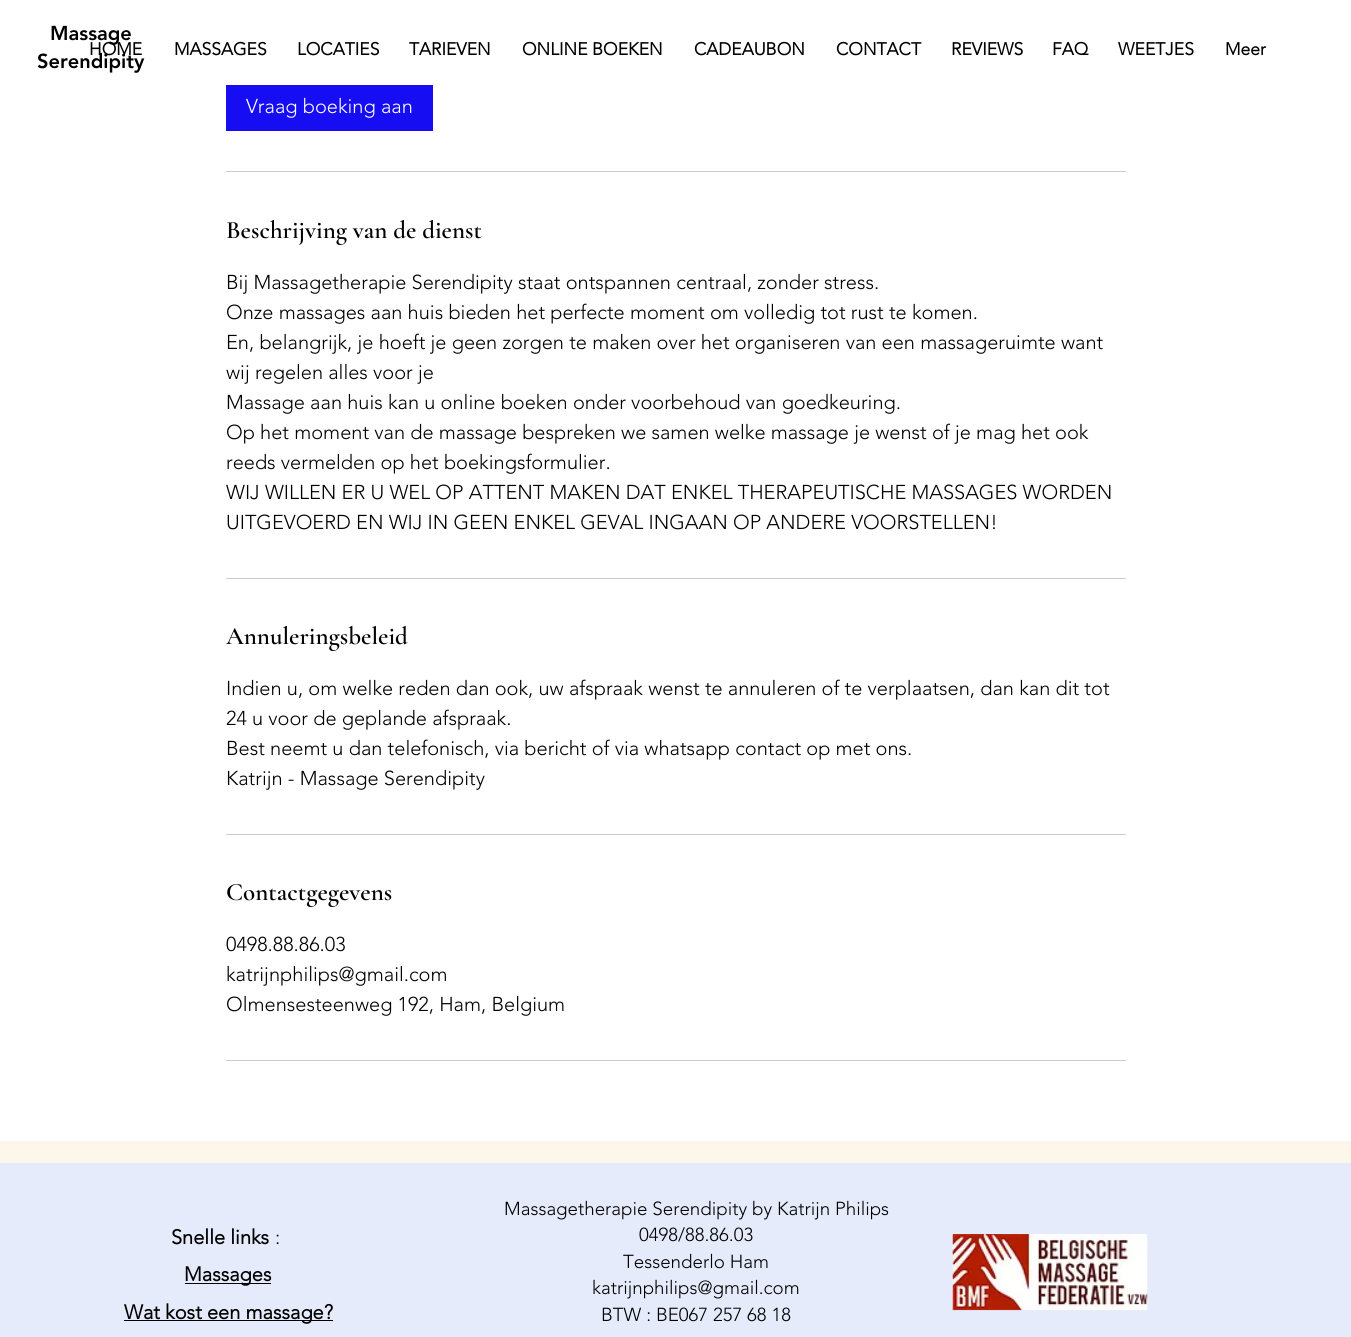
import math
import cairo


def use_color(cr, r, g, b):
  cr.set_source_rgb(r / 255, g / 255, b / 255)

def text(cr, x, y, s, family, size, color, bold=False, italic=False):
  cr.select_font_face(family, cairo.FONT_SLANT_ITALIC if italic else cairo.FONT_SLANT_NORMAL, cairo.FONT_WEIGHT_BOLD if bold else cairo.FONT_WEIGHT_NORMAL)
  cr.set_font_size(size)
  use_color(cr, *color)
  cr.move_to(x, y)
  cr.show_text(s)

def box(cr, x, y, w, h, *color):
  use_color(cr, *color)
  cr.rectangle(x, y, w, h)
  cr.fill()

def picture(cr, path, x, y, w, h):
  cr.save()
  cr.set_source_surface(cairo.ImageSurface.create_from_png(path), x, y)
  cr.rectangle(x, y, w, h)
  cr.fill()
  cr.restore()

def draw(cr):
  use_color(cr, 253, 246, 235)
  cr.paint()
  box(cr, 0, 0, 1351, 1141, 255, 255, 255)
  box(cr, 226, 85, 207, 46, 23, 13, 242)
  box(cr, 226, 171, 900, 1, 204, 204, 204)
  box(cr, 226, 578, 900, 1, 204, 204, 204)
  box(cr, 226, 834, 900, 1, 204, 204, 204)
  box(cr, 226, 1060, 900, 1, 204, 204, 204)
  box(cr, 0, 1163, 1351, 174, 229, 235, 250)
  box(cr, 185, 1283, 86, 1, 0, 0, 0)
  box(cr, 124, 1320, 209, 1, 0, 0, 0)
  picture(cr, "img_01.png", 952, 1234, 196, 77)
  text(cr, 50, 40, "Massage", "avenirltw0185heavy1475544 Black", 20, (0, 0, 0))
  text(cr, 37, 68, "Serendipity", "avenirltw0185heavy1475544 Black", 20, (0, 0, 0))
  text(cr, 89, 55, "HOME", "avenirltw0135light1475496", 17.5, (0, 0, 0), bold=True)
  text(cr, 174, 55, "MASSAGES", "avenirltw0135light1475496", 17.5, (0, 0, 0), bold=True)
  text(cr, 297, 55, "LOCATIES", "avenirltw0135light1475496", 17.5, (0, 0, 0), bold=True)
  text(cr, 409, 55, "TARIEVEN", "avenirltw0135light1475496", 17.5, (0, 0, 0), bold=True)
  text(cr, 522, 55, "ONLINE BOEKEN", "avenirltw0135light1475496", 17.5, (0, 0, 0), bold=True)
  text(cr, 694, 55, "CADEAUBON", "avenirltw0135light1475496", 17.5, (0, 0, 0), bold=True)
  text(cr, 836, 55, "CONTACT", "avenirltw0135light1475496", 17.5, (0, 0, 0), bold=True)
  text(cr, 951, 55, "REVIEWS", "avenirltw0135light1475496", 17.5, (0, 0, 0), bold=True)
  text(cr, 1052, 55, "FAQ", "avenirltw0135light1475496", 17.5, (0, 0, 0), bold=True)
  text(cr, 1118, 55, "WEETJES", "avenirltw0135light1475496", 17.5, (0, 0, 0), bold=True)
  text(cr, 1225, 55, "Meer", "avenirltw0135light1475496", 17.5, (0, 0, 0), bold=True)
  text(cr, 246, 113, "Vraag boeking aan", "avenirltw0135light1475496 Light", 20, (255, 255, 255))
  text(cr, 226, 238, "Beschrijving van de dienst", "Cormorant Garamond SemiBold", 25, (0, 0, 0))
  text(cr, 226, 289, "Bij Massagetherapie Serendipity staat ontspannen centraal, zonder stress.", "avenirltw0135light1475496 Light", 20, (0, 0, 0))
  text(cr, 226, 319, "Onze massages aan huis bieden het perfecte moment om volledig tot rust te komen.", "avenirltw0135light1475496 Light", 20, (0, 0, 0))
  text(cr, 226, 349, "En, belangrijk, je hoeft je geen zorgen te maken over het organiseren van een massageruimte want", "avenirltw0135light1475496 Light", 20, (0, 0, 0))
  text(cr, 226, 379, "wij regelen alles voor je", "avenirltw0135light1475496 Light", 20, (0, 0, 0))
  text(cr, 226, 409, "Massage aan huis kan u online boeken onder voorbehoud van goedkeuring.", "avenirltw0135light1475496 Light", 20, (0, 0, 0))
  text(cr, 226, 439, "Op het moment van de massage bespreken we samen welke massage je wenst of je mag het ook", "avenirltw0135light1475496 Light", 20, (0, 0, 0))
  text(cr, 226, 469, "reeds vermelden op het boekingsformulier.", "avenirltw0135light1475496 Light", 20, (0, 0, 0))
  text(cr, 226, 499, "WIJ WILLEN ER U WEL OP ATTENT MAKEN DAT ENKEL THERAPEUTISCHE MASSAGES WORDEN", "avenirltw0135light1475496 Light", 20, (0, 0, 0))
  text(cr, 226, 529, "UITGEVOERD EN WIJ IN GEEN ENKEL GEVAL INGAAN OP ANDERE VOORSTELLEN!", "avenirltw0135light1475496 Light", 20, (0, 0, 0))
  text(cr, 226, 644, "Annuleringsbeleid", "Cormorant Garamond SemiBold", 25, (0, 0, 0))
  text(cr, 226, 695, "Indien u, om welke reden dan ook, uw afspraak wenst te annuleren of te verplaatsen, dan kan dit tot", "avenirltw0135light1475496 Light", 20, (0, 0, 0))
  text(cr, 226, 725, "24 u voor de geplande afspraak.", "avenirltw0135light1475496 Light", 20, (0, 0, 0))
  text(cr, 226, 755, "Best neemt u dan telefonisch, via bericht of via whatsapp contact op met ons.", "avenirltw0135light1475496 Light", 20, (0, 0, 0))
  text(cr, 226, 785, "Katrijn - Massage Serendipity", "avenirltw0135light1475496 Light", 20, (0, 0, 0))
  text(cr, 226, 900, "Contactgegevens", "Cormorant Garamond SemiBold", 25, (0, 0, 0))
  text(cr, 226, 951, "0498.88.86.03", "avenirltw0135light1475496 Light", 20, (0, 0, 0))
  text(cr, 226, 981, "katrijnphilips@gmail.com", "avenirltw0135light1475496 Light", 20, (0, 0, 0))
  text(cr, 226, 1011, "Olmensesteenweg 192, Ham, Belgium", "avenirltw0135light1475496 Light", 20, (0, 0, 0))
  text(cr, 171, 1244, "Snelle links", "avenirltw0135light1475496", 20, (0, 0, 0), bold=True)
  text(cr, 275, 1244, ":", "avenirltw0135light1475496 Light", 20, (0, 0, 0))
  text(cr, 184, 1281, "Massages", "avenirltw0135light1475496", 20, (0, 0, 0), bold=True)
  text(cr, 124, 1319, "Wat kost een massage?", "avenirltw0135light1475496", 20, (0, 0, 0), bold=True)
  text(cr, 504, 1215, "Massagetherapie Serendipity by Katrijn Philips", "avenirltw0135light1475496 Light", 18.75, (0, 0, 0))
  text(cr, 639, 1241, "0498/88.86.03", "avenirltw0135light1475496 Light", 18.75, (0, 0, 0))
  text(cr, 623, 1268, "Tessenderlo Ham", "avenirltw0135light1475496 Light", 18.75, (0, 0, 0))
  text(cr, 592, 1294, "katrijnphilips@gmail.com", "avenirltw0135light1475496 Light", 18.75, (0, 0, 0))
  text(cr, 601, 1321, "BTW : BE067 257 68 18", "avenirltw0135light1475496 Light", 18.75, (0, 0, 0))


surface = cairo.ImageSurface(cairo.FORMAT_RGB24, 1351, 1337)
cr = cairo.Context(surface)
options = cairo.FontOptions()
options.set_hint_metrics(cairo.HINT_METRICS_OFF)
options.set_hint_style(cairo.HINT_STYLE_NONE)
cr.set_font_options(options)
cr.set_miter_limit(4)
draw(cr)
surface.write_to_png("out.png")
